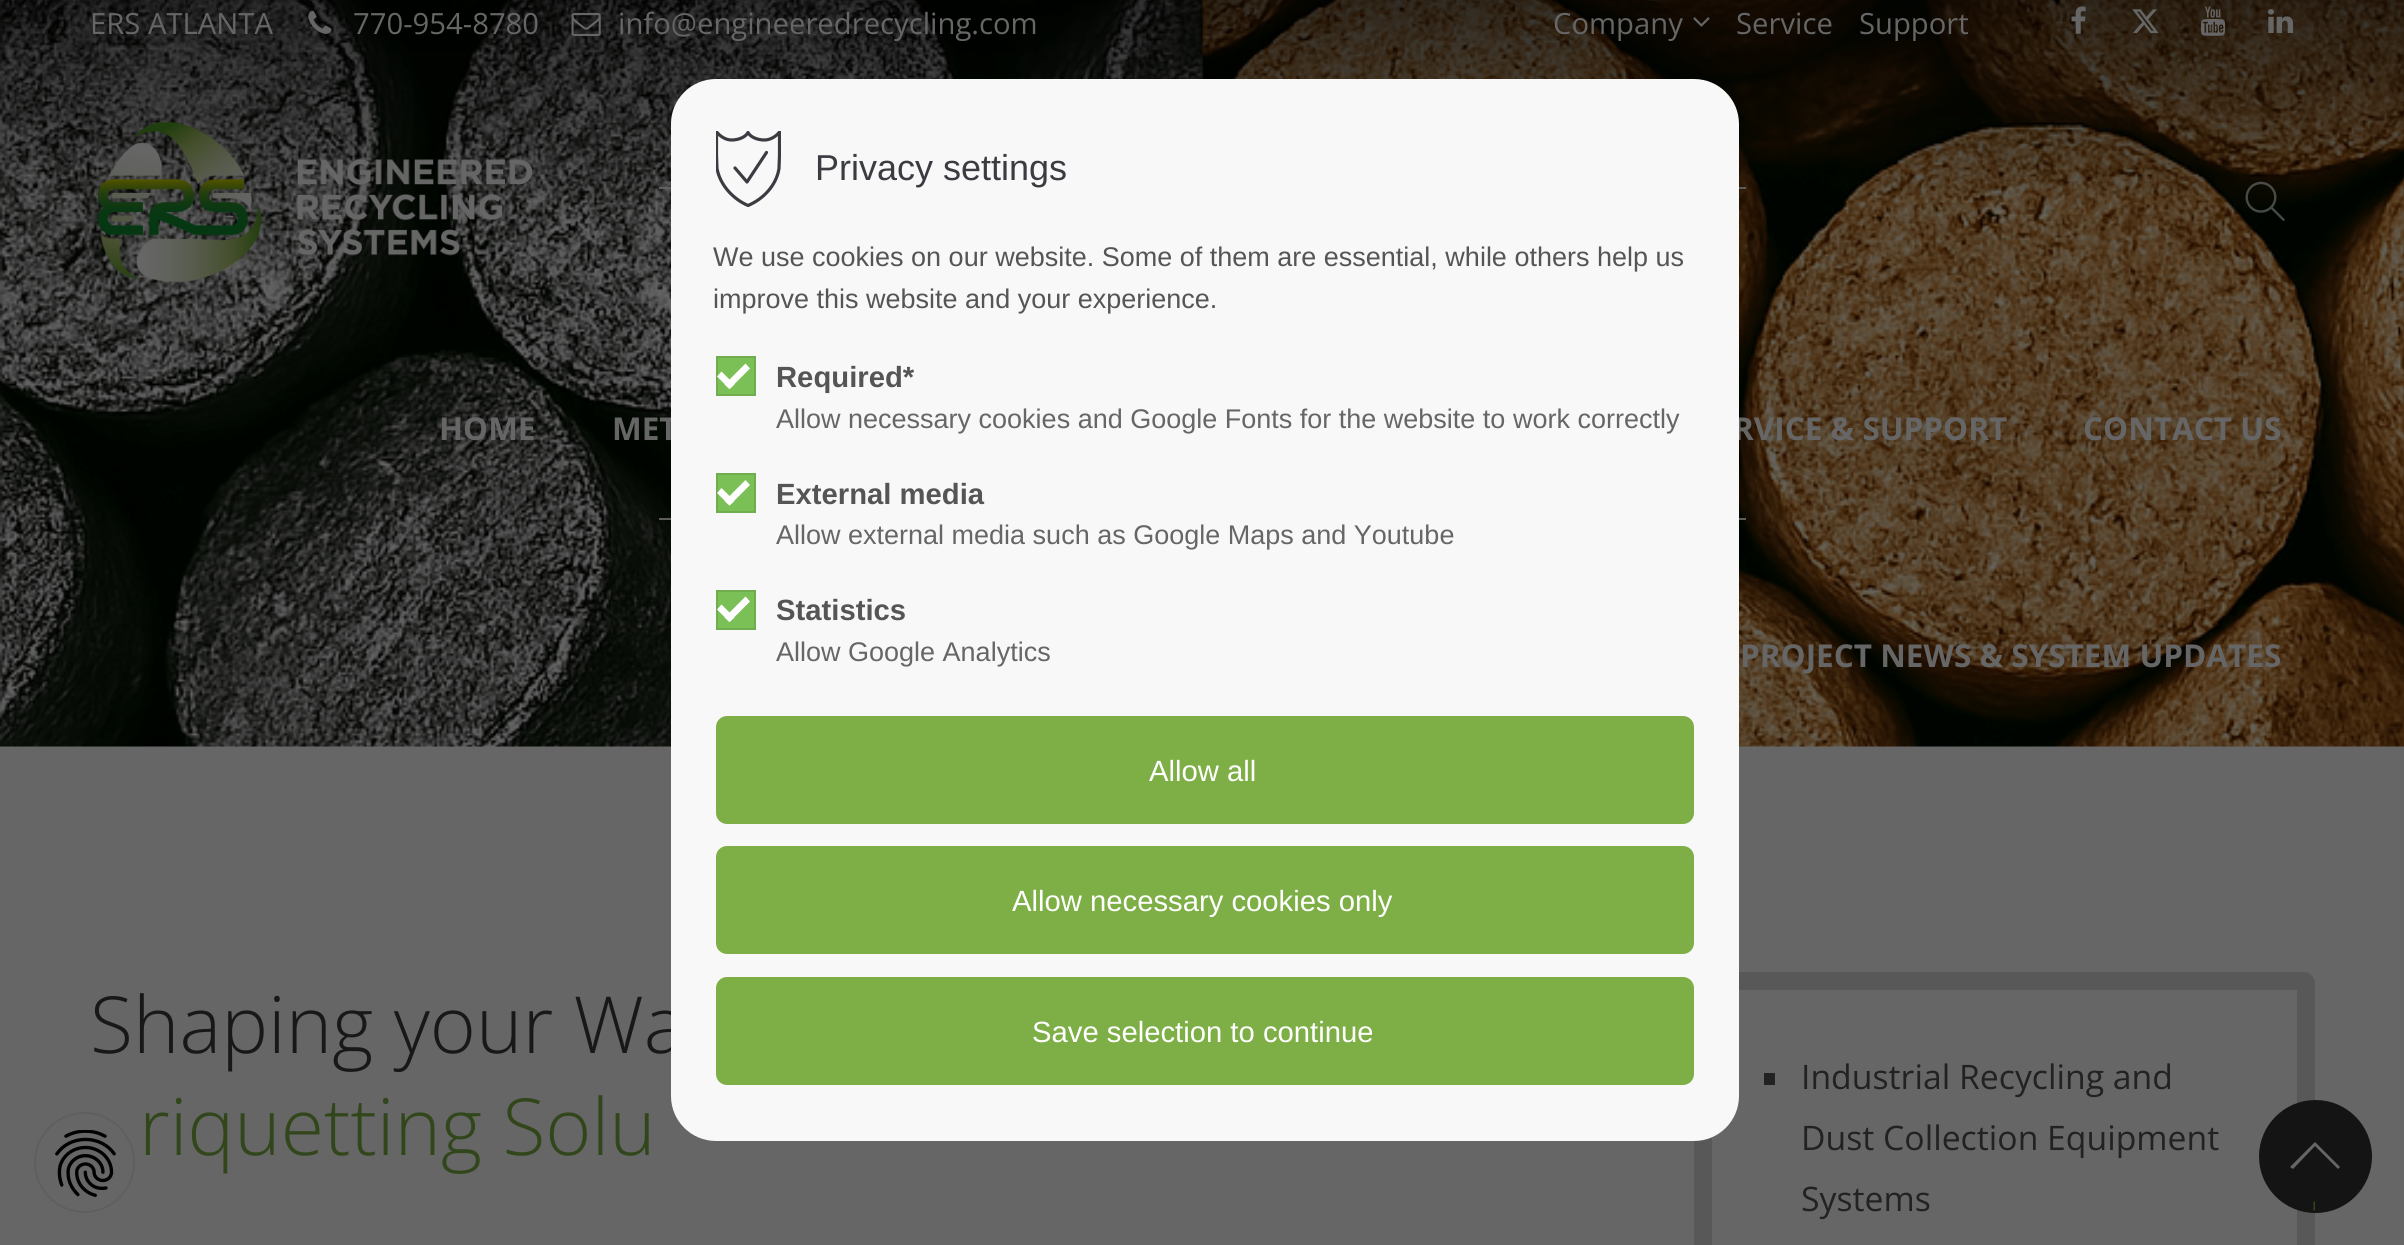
import math
import cairo


def use_color(cr, r, g, b):
  cr.set_source_rgb(r / 255, g / 255, b / 255)

def text(cr, x, y, s, family, size, color, bold=False, italic=False):
  cr.select_font_face(family, cairo.FONT_SLANT_ITALIC if italic else cairo.FONT_SLANT_NORMAL, cairo.FONT_WEIGHT_BOLD if bold else cairo.FONT_WEIGHT_NORMAL)
  cr.set_font_size(size)
  use_color(cr, *color)
  cr.move_to(x, y)
  cr.show_text(s)

def box(cr, x, y, w, h, *color):
  use_color(cr, *color)
  cr.rectangle(x, y, w, h)
  cr.fill()

def round_rect(cr, x, y, w, h, r):
  cr.new_sub_path()
  for i, (u, v) in enumerate([(x + w - r, y + h - r), (x + r, y + h - r), (x + r, y + r), (x + w - r, y + r)]):
    cr.arc(u, v, r, i * math.pi / 2, (i + 1) * math.pi / 2)
  cr.close_path()

def picture(cr, path, x, y, w, h):
  cr.save()
  cr.set_source_surface(cairo.ImageSurface.create_from_png(path), x, y)
  cr.rectangle(x, y, w, h)
  cr.fill()
  cr.restore()

def draw(cr):
  use_color(cr, 102, 102, 102)
  cr.paint()
  picture(cr, "img_01.png", 0, 0, 2404, 747)
  cr.set_source_rgba(0.4, 0.4, 0.4, 0.9)
  cr.rectangle(659, 187, 1087, 2)
  cr.fill()
  cr.rectangle(659, 518, 1087, 2)
  cr.fill()
  gradient = cairo.LinearGradient(1203, -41, 1203, 205)
  gradient.add_color_stop_rgba(0, 0, 0, 0, 0.6)
  gradient.add_color_stop_rgba(1, 0, 0, 0, 0)
  cr.set_source(gradient)
  cr.rectangle(0, 0, 2404, 195)
  cr.fill()
  picture(cr, "img_02.png", 308, 10, 24, 24)
  picture(cr, "img_03.png", 571, 13, 30, 23)
  picture(cr, "img_04.png", 1693, 17, 17, 10)
  picture(cr, "img_05.png", 2071, 6, 15, 28)
  picture(cr, "img_06.png", 2132, 9, 27, 25)
  picture(cr, "img_07.png", 2200, 6, 26, 30)
  picture(cr, "img_08.png", 2268, 9, 26, 24)
  picture(cr, "img_09.png", 98, 121, 434, 162)
  picture(cr, "img_10.png", 2245, 181, 40, 41)
  round_rect(cr, 1703, 981, 603, 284, 2)
  use_color(cr, 88, 88, 88)
  cr.set_line_width(18)
  cr.stroke()
  box(cr, 1764, 1073, 11, 12, 34, 34, 34)
  picture(cr, "img_11.png", 55, 1130, 61, 67)
  cr.arc(84.5, 1162.5, 49.5, 0, 2 * math.pi)
  use_color(cr, 94, 95, 94)
  cr.set_line_width(2)
  cr.stroke()
  use_color(cr, 20, 20, 20)
  cr.arc(2315.5, 1156.5, 56.5, 0, 2 * math.pi)
  cr.fill()
  use_color(cr, 102, 102, 102)
  cr.new_path()
  cr.move_to(2338, 1169)
  cr.line_to(2315, 1146)
  cr.line_to(2293, 1169)
  cr.line_to(2290, 1167)
  cr.line_to(2315, 1142)
  cr.line_to(2340, 1167)
  cr.close_path()
  cr.fill()
  cr.new_path()
  cr.move_to(2315, 1206)
  cr.line_to(2313.5, 1206)
  use_color(cr, 50, 70, 28)
  cr.set_line_width(9)
  cr.stroke()
  text(cr, 90, 34, "ERS ATLANTA", "Open Sans", 29.25, (102, 102, 102))
  text(cr, 353, 34, "770-954-8780", "Open Sans", 29.25, (102, 102, 102))
  text(cr, 618, 34, "info@engineeredrecycling.com", "Open Sans", 29.25, (102, 102, 102))
  text(cr, 1553, 34, "Company", "Open Sans", 29.25, (102, 102, 102))
  text(cr, 1736, 34, "Service", "Open Sans", 29.25, (102, 102, 102))
  text(cr, 1859, 34, "Support", "Open Sans", 29.25, (102, 102, 102))
  text(cr, 439, 440, "HOME", "Open Sans", 31.5, (102, 102, 102), bold=True)
  text(cr, 612, 440, "MET", "Open Sans", 31.5, (102, 102, 102), bold=True)
  text(cr, 1733, 440, "RVICE & SUPPORT", "Open Sans", 31.5, (102, 102, 102), bold=True)
  text(cr, 2083, 440, "CONTACT US", "Open Sans", 31.5, (102, 102, 102), bold=True)
  text(cr, 1740, 667, "PROJECT NEWS & SYSTEM UPDATES", "Open Sans", 31.5, (102, 102, 102), bold=True)
  text(cr, 90, 1053, "Shaping your Wa", "Open Sans Light", 78.75, (24, 24, 26))
  text(cr, 139, 1155, "riquetting Solu", "Open Sans Light", 78.75, (50, 70, 28))
  text(cr, 1801, 1089, "Industrial Recycling and", "Open Sans", 33.75, (34, 34, 34))
  text(cr, 1801, 1150, "Dust Collection Equipment", "Open Sans", 33.75, (34, 34, 34))
  text(cr, 1801, 1211, "Systems", "Open Sans", 33.75, (34, 34, 34))
  use_color(cr, 248, 248, 248)
  round_rect(cr, 671, 79, 1068, 1062, 45)
  cr.fill()
  cr.save()
  cr.rectangle(716, 131, 65, 76)
  cr.clip()
  cr.new_path()
  cr.move_to(748, 205.5)
  cr.curve_to(733, 199, 720, 185, 717, 168.5)
  cr.line_to(716.5, 154.5)
  cr.line_to(716.5, 132)
  cr.curve_to(719.5, 135.5, 725, 140, 731.5, 140)
  cr.curve_to(739.5, 140, 746, 136.5, 748, 132.5)
  cr.curve_to(750, 136.5, 756.5, 140, 764.5, 140)
  cr.curve_to(771, 140, 777, 135.5, 779.5, 132)
  cr.line_to(779.5, 154.5)
  cr.line_to(779, 168.5)
  cr.curve_to(776.5, 185, 763.5, 199, 748, 205.5)
  cr.close_path()
  use_color(cr, 59, 60, 65)
  cr.set_line_width(3.2)
  cr.set_line_cap(cairo.LINE_CAP_ROUND)
  cr.set_line_join(cairo.LINE_JOIN_ROUND)
  cr.stroke()
  cr.restore()
  cr.new_path()
  cr.move_to(735, 168)
  cr.line_to(747, 182)
  cr.line_to(766.5, 152.5)
  use_color(cr, 59, 60, 65)
  cr.set_line_width(3.2)
  cr.set_line_cap(cairo.LINE_CAP_ROUND)
  cr.set_line_join(cairo.LINE_JOIN_ROUND)
  cr.stroke()
  text(cr, 815, 180, "Privacy settings", "Liberation Sans", 36, (59, 60, 66))
  text(cr, 713, 266, "We use cookies on our website. Some of them are essential, while others help us", "Liberation Sans", 27, (85, 85, 85))
  text(cr, 713, 308, "improve this website and your experience.", "Liberation Sans", 27, (85, 85, 85))
  use_color(cr, 123, 192, 87)
  cr.rectangle(717, 357, 38, 38)
  cr.fill_preserve()
  use_color(cr, 111, 173, 78)
  cr.set_line_width(2)
  cr.set_line_cap(cairo.LINE_CAP_BUTT)
  cr.set_line_join(cairo.LINE_JOIN_MITER)
  cr.stroke()
  use_color(cr, 255, 255, 255)
  cr.new_path()
  cr.move_to(745.5, 363.5)
  cr.line_to(750, 368.5)
  cr.line_to(729.5, 389)
  cr.line_to(724.5, 384.5)
  cr.close_path()
  cr.fill()
  cr.new_path()
  cr.move_to(721.5, 371.5)
  cr.line_to(734.5, 384.5)
  cr.line_to(729.5, 389)
  cr.line_to(717, 376.5)
  cr.close_path()
  cr.fill()
  text(cr, 776, 387, "Required*", "Liberation Sans", 29.25, (85, 85, 85), bold=True)
  text(cr, 776, 428, "Allow necessary cookies and Google Fonts for the website to work correctly", "Liberation Sans", 27, (102, 102, 102))
  use_color(cr, 123, 192, 87)
  cr.rectangle(717, 474, 38, 38)
  cr.fill_preserve()
  use_color(cr, 111, 173, 78)
  cr.stroke()
  use_color(cr, 255, 255, 255)
  cr.new_path()
  cr.move_to(745.5, 480)
  cr.line_to(750, 485)
  cr.line_to(729.5, 505.5)
  cr.line_to(724.5, 501)
  cr.close_path()
  cr.fill()
  cr.new_path()
  cr.move_to(721.5, 488)
  cr.line_to(734.5, 501)
  cr.line_to(729.5, 505.5)
  cr.line_to(717, 493)
  cr.close_path()
  cr.fill()
  text(cr, 776, 504, "External media", "Liberation Sans", 29.25, (85, 85, 85), bold=True)
  text(cr, 776, 544, "Allow external media such as Google Maps and Youtube", "Liberation Sans", 27, (102, 102, 102))
  use_color(cr, 123, 192, 87)
  cr.rectangle(717, 591, 38, 38)
  cr.fill_preserve()
  use_color(cr, 111, 173, 78)
  cr.stroke()
  use_color(cr, 255, 255, 255)
  cr.new_path()
  cr.move_to(745.5, 596.5)
  cr.line_to(750, 601.5)
  cr.line_to(729.5, 622)
  cr.line_to(724.5, 617.5)
  cr.close_path()
  cr.fill()
  cr.new_path()
  cr.move_to(721.5, 604.5)
  cr.line_to(734.5, 617.5)
  cr.line_to(729.5, 622)
  cr.line_to(717, 609.5)
  cr.close_path()
  cr.fill()
  text(cr, 776, 620, "Statistics", "Liberation Sans", 29.25, (85, 85, 85), bold=True)
  text(cr, 776, 661, "Allow Google Analytics", "Liberation Sans", 27, (102, 102, 102))
  use_color(cr, 125, 175, 70)
  round_rect(cr, 716, 716, 978, 108, 11)
  cr.fill()
  text(cr, 1149, 781, "Allow all", "Liberation Sans", 29.25, (255, 255, 255))
  use_color(cr, 125, 175, 70)
  round_rect(cr, 716, 846, 978, 108, 11)
  cr.fill()
  text(cr, 1012, 911, "Allow necessary cookies only", "Liberation Sans", 29.25, (255, 255, 255))
  use_color(cr, 125, 175, 70)
  round_rect(cr, 716, 977, 978, 108, 11)
  cr.fill()
  text(cr, 1032, 1042, "Save selection to continue", "Liberation Sans", 29.25, (255, 255, 255))


surface = cairo.ImageSurface(cairo.FORMAT_RGB24, 2404, 1245)
cr = cairo.Context(surface)
options = cairo.FontOptions()
options.set_hint_metrics(cairo.HINT_METRICS_OFF)
options.set_hint_style(cairo.HINT_STYLE_NONE)
cr.set_font_options(options)
cr.set_miter_limit(4)
draw(cr)
surface.write_to_png("out.png")
